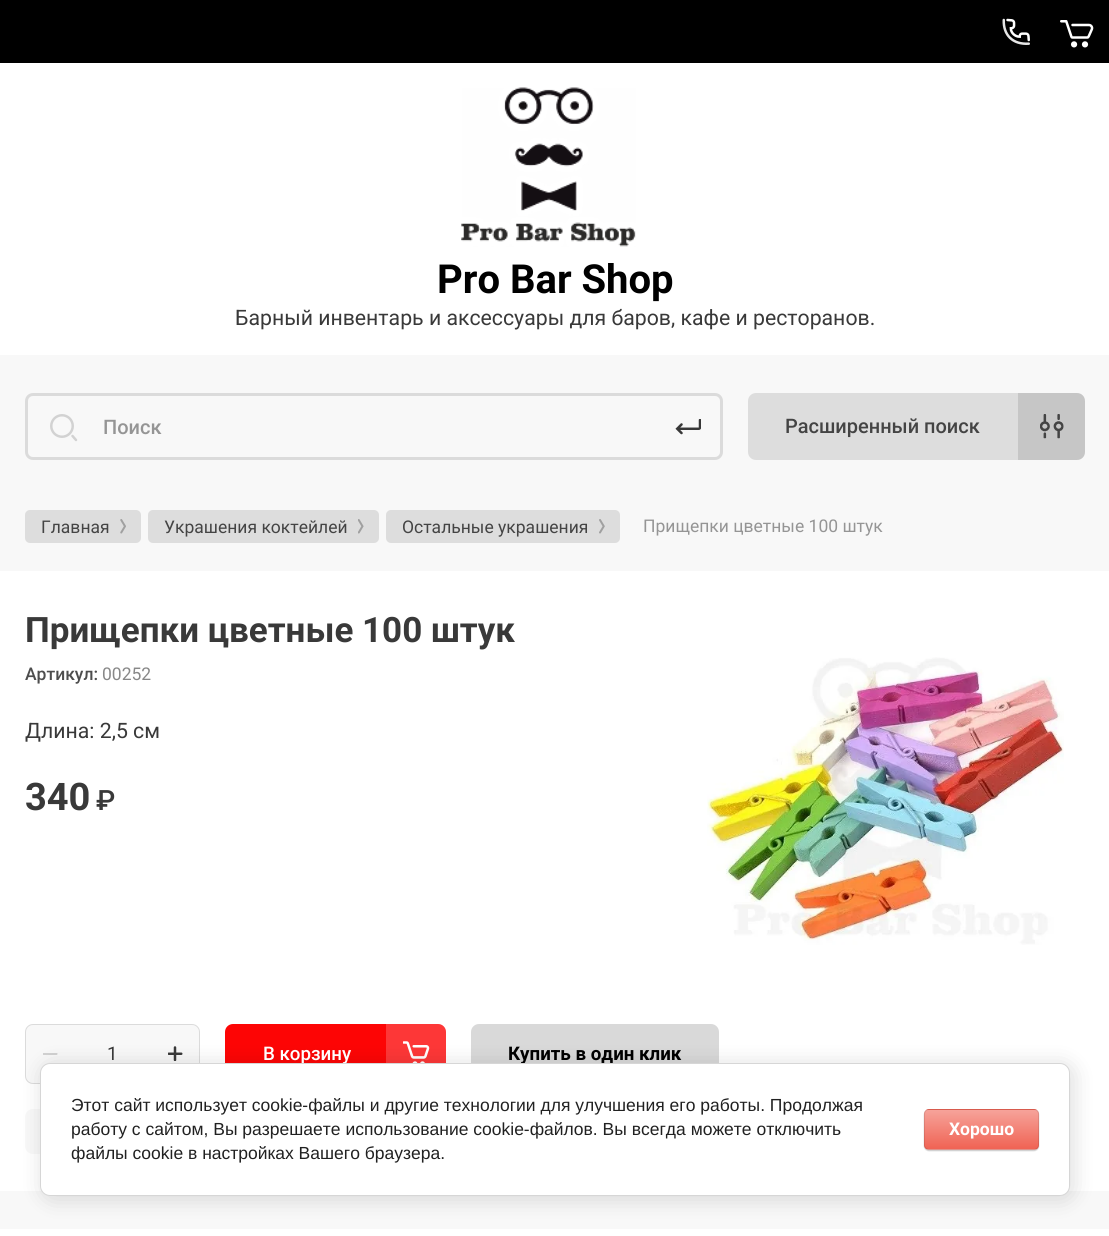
import math
import cairo


def use_color(cr, r, g, b):
  cr.set_source_rgb(r / 255, g / 255, b / 255)

def text(cr, x, y, s, family, size, color, bold=False, italic=False):
  cr.select_font_face(family, cairo.FONT_SLANT_ITALIC if italic else cairo.FONT_SLANT_NORMAL, cairo.FONT_WEIGHT_BOLD if bold else cairo.FONT_WEIGHT_NORMAL)
  cr.set_font_size(size)
  use_color(cr, *color)
  cr.move_to(x, y)
  cr.show_text(s)

def box(cr, x, y, w, h, *color):
  use_color(cr, *color)
  cr.rectangle(x, y, w, h)
  cr.fill()

def round_rect(cr, x, y, w, h, r):
  cr.new_sub_path()
  for i, (u, v) in enumerate([(x + w - r, y + h - r), (x + r, y + h - r), (x + r, y + r), (x + w - r, y + r)]):
    cr.arc(u, v, r, i * math.pi / 2, (i + 1) * math.pi / 2)
  cr.close_path()

def shadow(cr, x, y, w, h, r, blur, alpha):
  cr.push_group_with_content(cairo.CONTENT_ALPHA)
  cr.set_operator(cairo.OPERATOR_SOURCE)
  for i in range(15, -16, -2):
    e = blur * i / 6
    if min(w, h) + 2 * e > 0:
      cr.set_source_rgba(0, 0, 0, alpha * math.erfc((i - 1) / 8.5) / 2)
      round_rect(cr, x - e, y - e, w + 2 * e, h + 2 * e, max(0, min(r + e + blur * .6, min(w, h) / 2 + e)))
      cr.fill()
  cr.mask(cr.pop_group())

def picture(cr, path, x, y, w, h):
  cr.save()
  cr.set_source_surface(cairo.ImageSurface.create_from_png(path), x, y)
  cr.rectangle(x, y, w, h)
  cr.fill()
  cr.restore()

def draw(cr):
  use_color(cr, 248, 248, 248)
  cr.paint()
  box(cr, 0, 0, 1109, 63, 0, 0, 0)
  picture(cr, "img_01.png", 1002, 18, 28, 27)
  picture(cr, "img_02.png", 1060, 20, 34, 28)
  box(cr, 0, 63, 1109, 292, 255, 255, 255)
  picture(cr, "img_03.png", 461, 87, 175, 160)
  round_rect(cr, 26.5, 394.5, 695, 64, 6.5)
  use_color(cr, 219, 219, 219)
  cr.set_line_width(3)
  cr.stroke()
  cr.arc(62, 426, 10.75, 0, 2 * math.pi)
  use_color(cr, 210, 210, 210)
  cr.set_line_width(2.5)
  cr.stroke()
  cr.new_path()
  cr.move_to(72.5, 436)
  cr.line_to(76, 440)
  cr.set_line_cap(cairo.LINE_CAP_ROUND)
  cr.stroke()
  picture(cr, "img_04.png", 675, 419, 26, 16)
  use_color(cr, 221, 221, 221)
  round_rect(cr, 748, 393, 337, 67, 8)
  cr.fill()
  cr.set_source_rgba(0.267, 0.267, 0.267, 0.15)
  cr.new_path()
  cr.move_to(1018, 393)
  cr.line_to(1077, 393)
  cr.curve_to(1081.5, 393, 1085, 396.5, 1085, 401)
  cr.line_to(1085, 452)
  cr.curve_to(1085, 456.5, 1081.5, 460, 1077, 460)
  cr.line_to(1018, 460)
  cr.close_path()
  cr.fill()
  picture(cr, "img_05.png", 1040, 414, 24, 25)
  use_color(cr, 221, 221, 221)
  round_rect(cr, 25, 510, 116, 33, 5)
  cr.fill()
  picture(cr, "img_06.png", 120, 519, 6, 15)
  round_rect(cr, 148, 510, 231, 33, 5)
  cr.fill()
  picture(cr, "img_07.png", 358, 519, 6, 15)
  round_rect(cr, 386, 510, 234, 33, 5)
  cr.fill()
  picture(cr, "img_08.png", 599, 519, 6, 15)
  box(cr, 0, 571, 1109, 620, 255, 255, 255)
  picture(cr, "img_09.png", 707, 657, 357, 288)
  use_color(cr, 248, 248, 248)
  round_rect(cr, 25, 1024, 175, 60, 8)
  cr.fill()
  round_rect(cr, 25.5, 1024.5, 174, 59, 7.5)
  cr.set_source_rgba(0.22, 0.22, 0.22, 0.15)
  cr.set_line_width(1)
  cr.set_line_cap(cairo.LINE_CAP_BUTT)
  cr.stroke()
  picture(cr, "img_10.png", 43, 1053, 15, 2)
  picture(cr, "img_11.png", 168, 1046, 15, 15)
  use_color(cr, 253, 5, 5)
  round_rect(cr, 225, 1024, 221, 60, 8)
  cr.fill()
  cr.set_source_rgba(1, 1, 1, 0.2)
  cr.new_path()
  cr.move_to(386, 1024)
  cr.line_to(438, 1024)
  cr.curve_to(442.5, 1024, 446, 1027.5, 446, 1032)
  cr.line_to(446, 1076)
  cr.curve_to(446, 1080.5, 442.5, 1084, 438, 1084)
  cr.line_to(386, 1084)
  cr.close_path()
  cr.fill()
  picture(cr, "img_12.png", 403, 1041, 27, 22)
  use_color(cr, 217, 217, 217)
  round_rect(cr, 471, 1024, 248, 60, 8)
  cr.fill()
  use_color(cr, 248, 248, 248)
  round_rect(cr, 25, 1109, 310, 45, 8)
  cr.fill()
  box(cr, 0, 1229, 1109, 7, 255, 255, 255)
  use_color(cr, 0, 0, 0)
  shadow(cr, 43, 1065, 1030, 134, 10, 11, 0.14)
  text(cr, 437, 293, "Pro Bar Shop", "Roboto", 40, (0, 0, 0), bold=True)
  text(cr, 235, 325, "Барный инвентарь и аксессуары для баров, кафе и ресторанов.", "Roboto", 21.25, (57, 57, 57))
  text(cr, 103, 434, "Поиск", "Roboto Medium", 20, (149, 149, 149))
  text(cr, 785, 433, "Расширенный поиск", "Roboto Medium", 20, (68, 68, 68))
  text(cr, 41, 533, "Главная", "Roboto", 17.5, (68, 68, 68))
  text(cr, 164, 533, "Украшения коктейлей", "Roboto", 17.5, (68, 68, 68))
  text(cr, 402, 533, "Остальные украшения", "Roboto", 17.5, (68, 68, 68))
  text(cr, 643, 532, "Прищепки цветные 100 штук", "Roboto", 17.5, (149, 149, 149))
  text(cr, 25, 642, "Прищепки цветные 100 штук", "Roboto", 35, (57, 57, 57), bold=True)
  text(cr, 25, 680, "Артикул:", "Roboto Medium", 17.5, (77, 77, 77))
  text(cr, 102, 680, "00252", "Roboto", 17.5, (136, 136, 136))
  text(cr, 25, 738, "Длина: 2,5 см", "Roboto", 21.25, (57, 57, 57))
  text(cr, 25, 810, "340", "Roboto", 38, (57, 57, 57), bold=True)
  text(cr, 96, 810, "₽", "Roboto Medium", 28, (57, 57, 57))
  text(cr, 107, 1060, "1", "Roboto", 18.75, (57, 57, 57))
  text(cr, 263, 1060, "В корзину", "Roboto Medium", 18.75, (255, 255, 255))
  text(cr, 508, 1060, "Купить в один клик", "Roboto", 18.75, (0, 0, 0), bold=True)
  use_color(cr, 255, 255, 255)
  round_rect(cr, 40.5, 1063.5, 1029, 132, 9.5)
  cr.fill_preserve()
  use_color(cr, 214, 214, 214)
  cr.stroke()
  text(cr, 71, 1111, "Этот сайт использует cookie-файлы и другие технологии для улучшения его работы. Продолжая", "Liberation Sans", 17.5, (33, 33, 33))
  text(cr, 71, 1135, "работу с сайтом, Вы разрешаете использование cookie-файлов. Вы всегда можете отключить", "Liberation Sans", 17.5, (33, 33, 33))
  text(cr, 71, 1159, "файлы cookie в настройках Вашего браузера.", "Liberation Sans", 17.5, (33, 33, 33))
  use_color(cr, 0, 0, 0)
  shadow(cr, 924, 1110, 115, 41, 5, 0.5, 0.2)
  cr.save()
  round_rect(cr, 924, 1109, 115, 41, 5)
  cr.clip()
  gradient = cairo.LinearGradient(981, 1071, 981, 1110)
  gradient.add_color_stop_rgba(0, 0.965, 0.639, 0.604, 1)
  gradient.add_color_stop_rgba(1, 0.941, 0.388, 0.329, 1)
  cr.set_source(gradient)
  cr.rectangle(924, 1109, 115, 1)
  cr.fill()
  gradient = cairo.LinearGradient(981, 1110, 981, 1149)
  gradient.add_color_stop_rgba(0, 0.965, 0.639, 0.604, 1)
  gradient.add_color_stop_rgba(1, 0.941, 0.388, 0.329, 1)
  cr.set_source(gradient)
  cr.rectangle(924, 1110, 115, 39)
  cr.fill()
  gradient = cairo.LinearGradient(981, 1149, 981, 1188)
  gradient.add_color_stop_rgba(0, 0.965, 0.639, 0.604, 1)
  gradient.add_color_stop_rgba(1, 0.941, 0.388, 0.329, 1)
  cr.set_source(gradient)
  cr.rectangle(924, 1149, 115, 1)
  cr.fill()
  cr.restore()
  round_rect(cr, 924.5, 1109.5, 114, 40, 4.5)
  cr.set_source_rgba(0, 0, 0, 0.1)
  cr.stroke()
  text(cr, 949, 1135, "Хорошо", "Roboto", 17.5, (255, 255, 255), bold=True)


surface = cairo.ImageSurface(cairo.FORMAT_RGB24, 1109, 1236)
cr = cairo.Context(surface)
options = cairo.FontOptions()
options.set_hint_metrics(cairo.HINT_METRICS_OFF)
options.set_hint_style(cairo.HINT_STYLE_NONE)
cr.set_font_options(options)
cr.set_miter_limit(4)
draw(cr)
surface.write_to_png("out.png")
